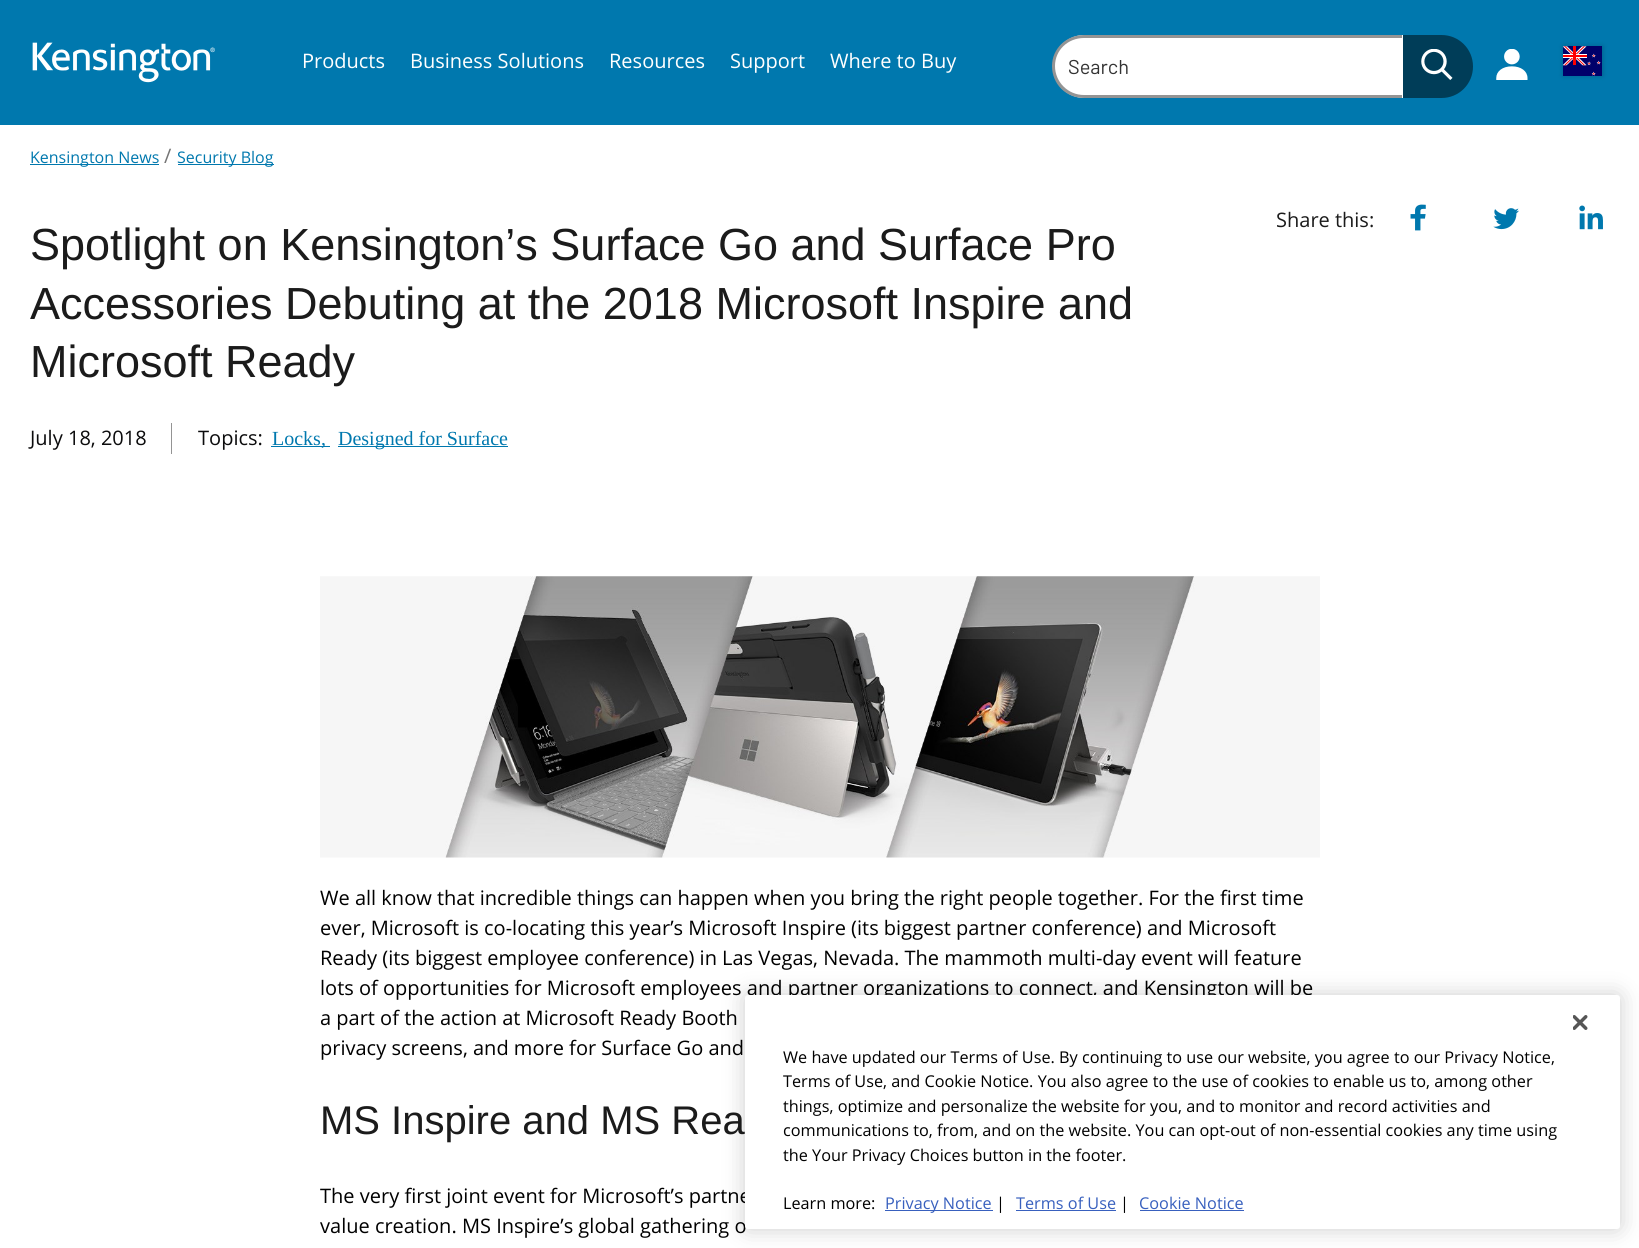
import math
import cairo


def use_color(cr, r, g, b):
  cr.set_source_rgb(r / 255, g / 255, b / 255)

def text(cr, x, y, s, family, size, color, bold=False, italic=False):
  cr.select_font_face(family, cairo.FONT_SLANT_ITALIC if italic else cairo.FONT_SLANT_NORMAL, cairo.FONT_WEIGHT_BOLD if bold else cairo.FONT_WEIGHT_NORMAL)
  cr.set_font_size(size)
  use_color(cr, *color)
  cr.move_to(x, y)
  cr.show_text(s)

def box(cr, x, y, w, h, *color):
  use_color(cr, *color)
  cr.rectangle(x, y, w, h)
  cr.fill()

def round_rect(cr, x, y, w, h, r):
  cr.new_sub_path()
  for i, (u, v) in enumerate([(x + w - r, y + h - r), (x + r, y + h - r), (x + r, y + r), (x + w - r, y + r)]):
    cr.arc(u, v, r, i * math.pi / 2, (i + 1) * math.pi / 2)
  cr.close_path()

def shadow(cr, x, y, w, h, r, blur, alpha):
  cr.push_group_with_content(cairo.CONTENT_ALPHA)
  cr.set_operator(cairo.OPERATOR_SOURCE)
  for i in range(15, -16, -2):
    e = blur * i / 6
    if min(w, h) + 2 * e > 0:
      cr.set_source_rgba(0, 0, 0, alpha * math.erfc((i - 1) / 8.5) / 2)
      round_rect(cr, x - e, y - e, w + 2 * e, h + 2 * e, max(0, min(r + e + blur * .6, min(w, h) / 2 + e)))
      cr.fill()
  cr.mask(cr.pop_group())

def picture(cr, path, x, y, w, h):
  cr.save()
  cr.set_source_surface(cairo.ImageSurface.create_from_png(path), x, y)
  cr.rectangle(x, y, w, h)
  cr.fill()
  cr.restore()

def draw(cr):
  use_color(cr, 255, 255, 255)
  cr.paint()
  box(cr, 0, 0, 1639, 125, 0, 120, 174)
  picture(cr, "img_01.png", 32, 42, 183, 41)
  use_color(cr, 255, 255, 255)
  cr.new_path()
  cr.move_to(1084.5, 35)
  cr.line_to(1403, 35)
  cr.line_to(1403, 98)
  cr.line_to(1084.5, 98)
  cr.curve_to(1067, 98, 1053, 84, 1053, 66.5)
  cr.curve_to(1053, 49, 1067, 35, 1084.5, 35)
  cr.close_path()
  cr.fill()
  use_color(cr, 148, 148, 148)
  cr.set_fill_rule(cairo.FILL_RULE_EVEN_ODD)
  cr.new_path()
  cr.move_to(1084, 35)
  cr.line_to(1402, 35)
  cr.line_to(1402, 98)
  cr.line_to(1084, 98)
  cr.curve_to(1066, 98, 1052, 84, 1052, 66)
  cr.curve_to(1052, 49, 1066, 35, 1084, 35)
  cr.close_path()
  cr.move_to(1084, 38)
  cr.line_to(1402, 38)
  cr.line_to(1402, 95)
  cr.line_to(1084, 95)
  cr.curve_to(1068, 95, 1055, 82, 1055, 66)
  cr.curve_to(1055, 50, 1068, 38, 1084, 38)
  cr.close_path()
  cr.fill()
  use_color(cr, 0, 61, 88)
  cr.new_path()
  cr.move_to(1403, 35)
  cr.line_to(1441.5, 35)
  cr.curve_to(1459, 35, 1473, 49, 1473, 66.5)
  cr.curve_to(1473, 84, 1459, 98, 1441.5, 98)
  cr.line_to(1403, 98)
  cr.close_path()
  cr.fill()
  picture(cr, "img_02.png", 1421, 49, 32, 31)
  picture(cr, "img_03.png", 1496, 49, 32, 31)
  use_color(cr, 0, 0, 0)
  shadow(cr, 1563, 46, 40, 30, 0, 2.5, 0.18)
  picture(cr, "img_04.png", 1563, 46, 39, 30)
  box(cr, 30, 164, 129, 1, 0, 120, 174)
  box(cr, 178, 164, 96, 1, 0, 120, 174)
  picture(cr, "img_05.png", 1410, 204, 16, 27)
  picture(cr, "img_06.png", 1493, 208, 26, 22)
  picture(cr, "img_07.png", 1579, 205, 24, 25)
  box(cr, 171, 423, 1, 31, 148, 148, 148)
  box(cr, 271, 446, 59, 1, 0, 120, 174)
  box(cr, 338, 446, 170, 1, 0, 120, 174)
  picture(cr, "img_08.png", 320, 576, 1000, 282)
  use_color(cr, 0, 0, 0)
  shadow(cr, 745, 995, 875, 234, 3, 11, 0.2)
  text(cr, 302, 68, "Products", "Open Sans", 20, (255, 255, 255))
  text(cr, 410, 68, "Business Solutions", "Open Sans", 20, (255, 255, 255))
  text(cr, 609, 68, "Resources", "Open Sans", 20, (255, 255, 255))
  text(cr, 730, 68, "Support", "Open Sans", 20, (255, 255, 255))
  text(cr, 830, 68, "Where to Buy", "Open Sans", 20, (255, 255, 255))
  text(cr, 1068, 74, "Search", "Barlow", 20, (51, 51, 51))
  text(cr, 30, 163, "Kensington News", "Open Sans", 16, (0, 120, 174))
  text(cr, 164, 163, "/", "Open Sans", 20, (117, 117, 117))
  text(cr, 177, 163, "Security Blog", "Open Sans", 16, (0, 120, 174))
  text(cr, 1276, 227, "Share this:", "Open Sans", 20, (27, 27, 27))
  text(cr, 30, 260, "Spotlight on Kensington’s Surface Go and Surface Pro", "Liberation Sans", 45, (27, 27, 27))
  text(cr, 30, 319, "Accessories Debuting at the 2018 Microsoft Inspire and", "Liberation Sans", 45, (27, 27, 27))
  text(cr, 30, 377, "Microsoft Ready", "Liberation Sans", 45, (27, 27, 27))
  text(cr, 30, 445, "July 18, 2018", "Open Sans", 20, (12, 12, 13))
  text(cr, 198, 445, "Topics:", "Open Sans", 20, (12, 12, 13))
  text(cr, 272, 445, "Locks,", "Liberation Serif", 20, (0, 120, 174))
  text(cr, 338, 445, "Designed for Surface", "Liberation Serif", 20, (0, 120, 174))
  text(cr, 320, 905, "We all know that incredible things can happen when you bring the right people together. For the first time", "Open Sans", 20, (0, 0, 0))
  text(cr, 320, 935, "ever, Microsoft is co-locating this year’s Microsoft Inspire (its biggest partner conference) and Microsoft", "Open Sans", 20, (0, 0, 0))
  text(cr, 320, 965, "Ready (its biggest employee conference) in Las Vegas, Nevada. The mammoth multi-day event will feature", "Open Sans", 20, (0, 0, 0))
  text(cr, 320, 995, "lots of opportunities for Microsoft employees and partner organizations to connect, and Kensington will be", "Open Sans", 20, (0, 0, 0))
  text(cr, 320, 1025, "a part of the action at Microsoft Ready Booth", "Open Sans", 20, (0, 0, 0))
  text(cr, 320, 1055, "privacy screens, and more for Surface Go and", "Open Sans", 20, (0, 0, 0))
  text(cr, 320, 1134, "MS Inspire and MS Rea", "Liberation Sans", 40, (27, 27, 27))
  text(cr, 320, 1203, "The very first joint event for Microsoft’s partne", "Open Sans", 20, (0, 0, 0))
  text(cr, 320, 1233, "value creation. MS Inspire’s global gathering o", "Open Sans", 20, (0, 0, 0))
  use_color(cr, 255, 255, 255)
  round_rect(cr, 745, 995, 875, 234, 3)
  cr.fill()
  picture(cr, "img_09.png", 1573, 1015, 15, 15)
  text(cr, 783, 1063, "We have updated our Terms of Use. By continuing to use our website, you agree to our Privacy Notice,", "Open Sans", 16.25, (0, 0, 0))
  text(cr, 783, 1087, "Terms of Use, and Cookie Notice. You also agree to the use of cookies to enable us to, among other", "Open Sans", 16.25, (0, 0, 0))
  text(cr, 783, 1112, "things, optimize and personalize the website for you, and to monitor and record activities and", "Open Sans", 16.25, (0, 0, 0))
  text(cr, 783, 1136, "communications to, from, and on the website. You can opt-out of non-essential cookies any time using", "Open Sans", 16.25, (0, 0, 0))
  text(cr, 783, 1161, "the Your Privacy Choices button in the footer.", "Open Sans", 16.25, (0, 0, 0))
  text(cr, 783, 1209, "Learn more:", "Open Sans", 16.25, (0, 0, 0))
  box(cr, 885, 1210, 108, 1, 56, 96, 190)
  text(cr, 885, 1209, "Privacy Notice", "Open Sans", 16.25, (56, 96, 190))
  text(cr, 996, 1209, "|", "Open Sans", 16.25, (0, 0, 0))
  text(cr, 1016, 1209, "Terms of Use", "Open Sans", 16.25, (56, 96, 190))
  box(cr, 1016, 1210, 100, 1, 56, 96, 190)
  text(cr, 1120, 1209, "|", "Open Sans", 16.25, (0, 0, 0))
  text(cr, 1139, 1209, "Cookie Notice", "Open Sans", 16.25, (56, 96, 190))
  box(cr, 1140, 1210, 104, 1, 56, 96, 190)


surface = cairo.ImageSurface(cairo.FORMAT_RGB24, 1639, 1248)
cr = cairo.Context(surface)
options = cairo.FontOptions()
options.set_hint_metrics(cairo.HINT_METRICS_OFF)
options.set_hint_style(cairo.HINT_STYLE_NONE)
cr.set_font_options(options)
cr.set_miter_limit(4)
draw(cr)
surface.write_to_png("out.png")
